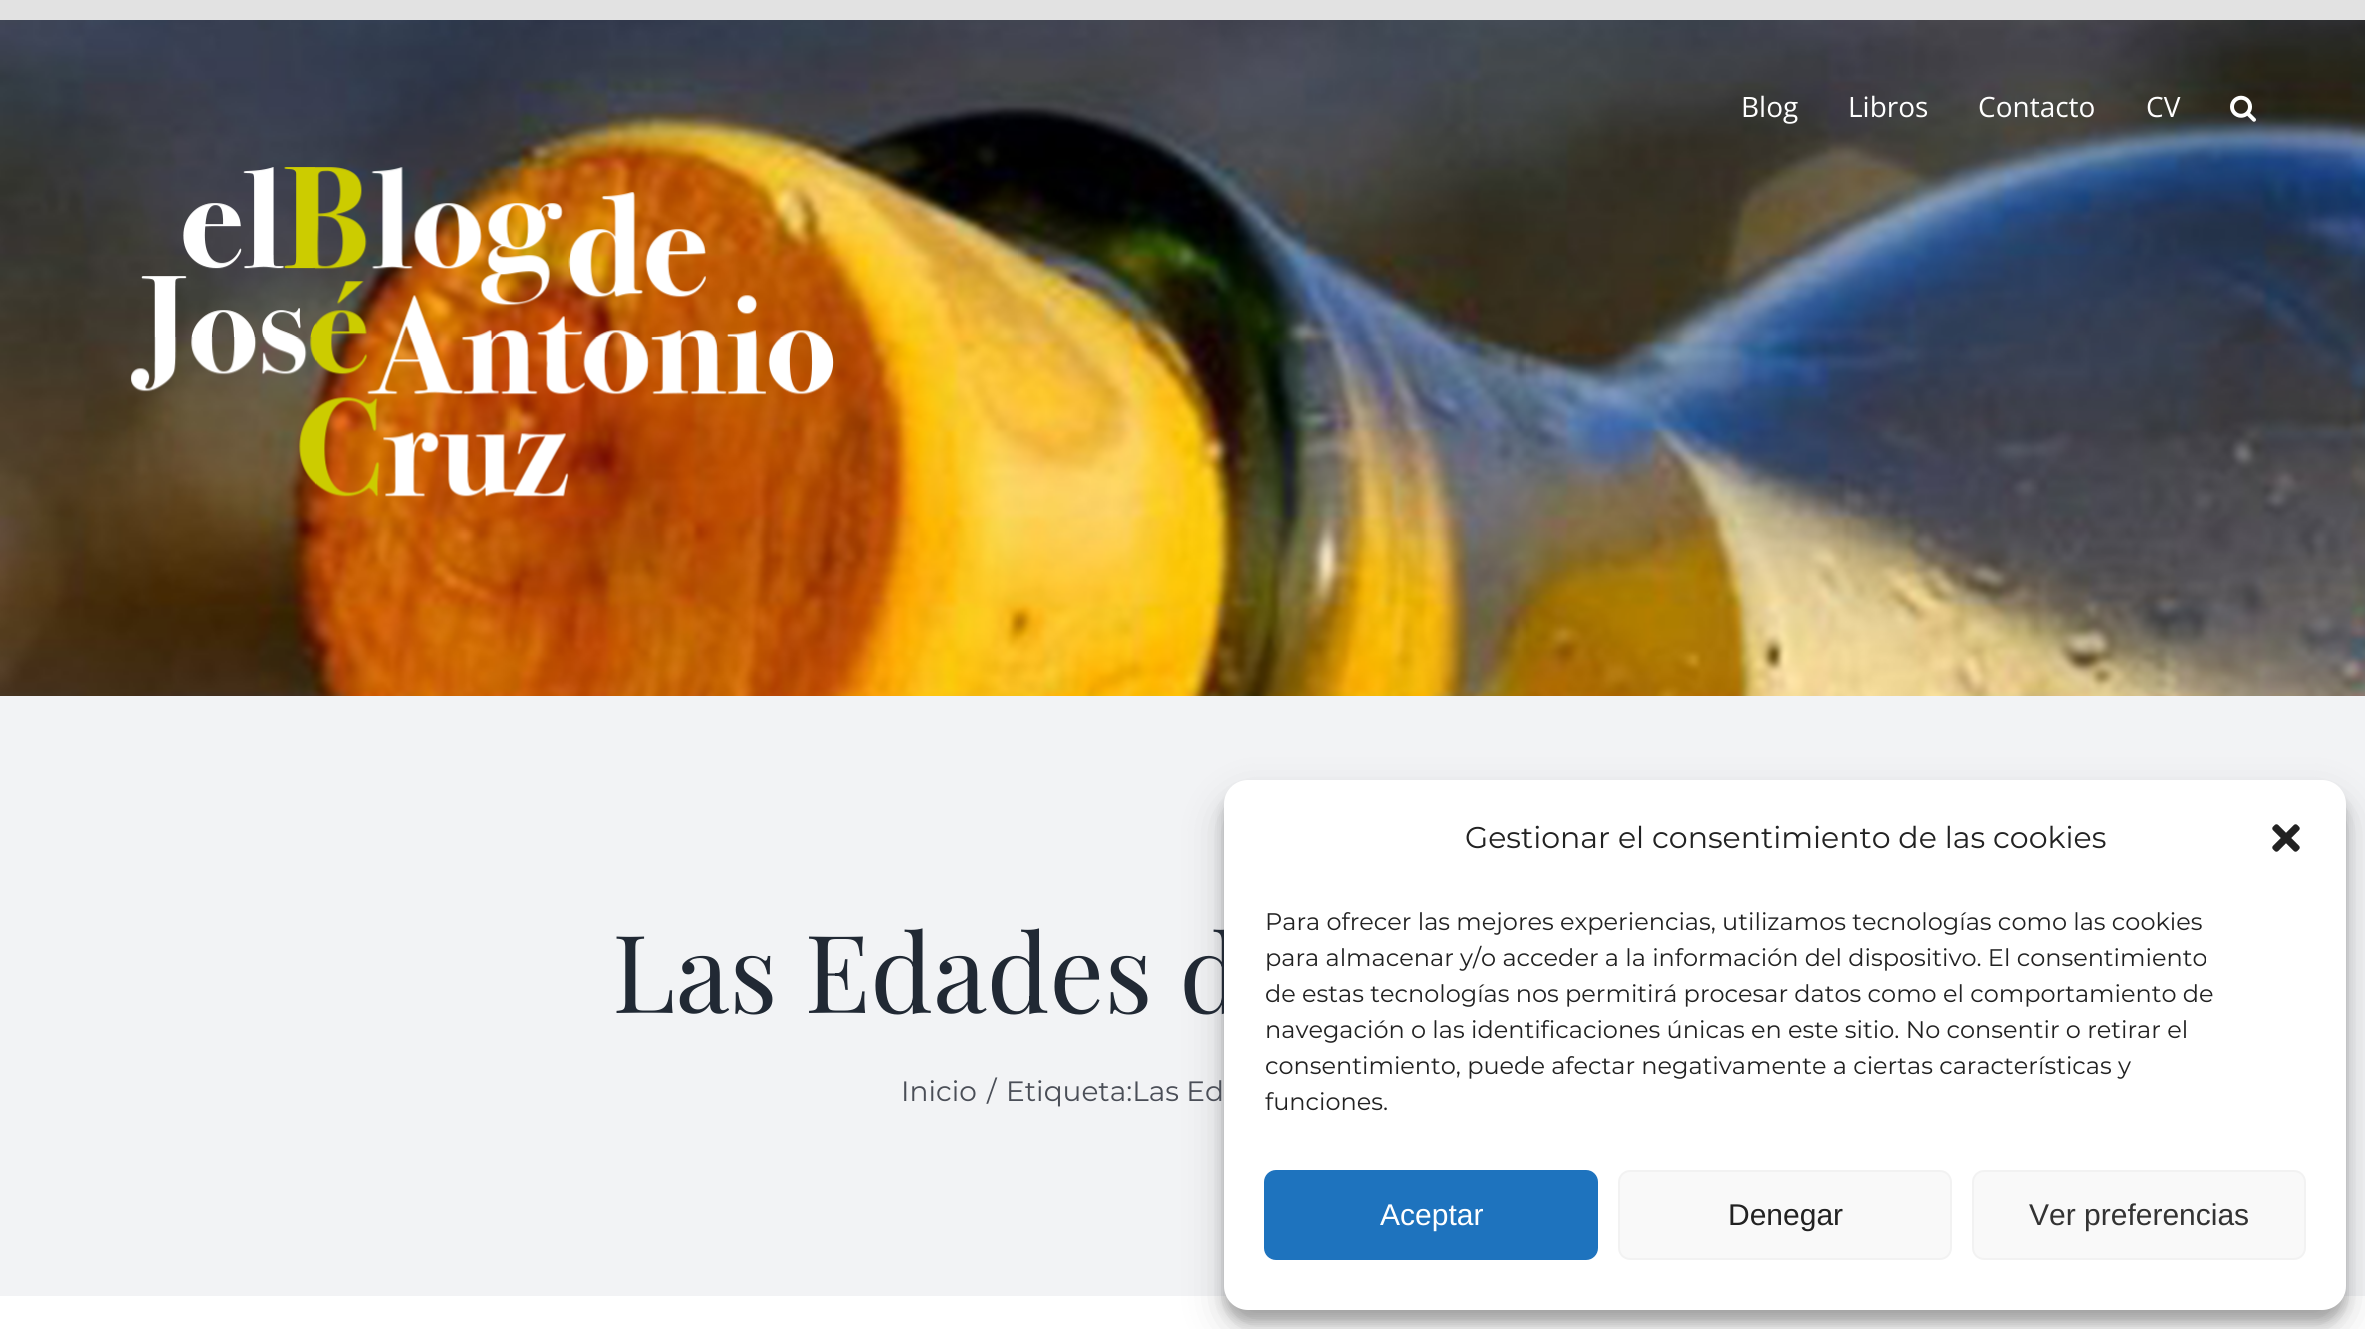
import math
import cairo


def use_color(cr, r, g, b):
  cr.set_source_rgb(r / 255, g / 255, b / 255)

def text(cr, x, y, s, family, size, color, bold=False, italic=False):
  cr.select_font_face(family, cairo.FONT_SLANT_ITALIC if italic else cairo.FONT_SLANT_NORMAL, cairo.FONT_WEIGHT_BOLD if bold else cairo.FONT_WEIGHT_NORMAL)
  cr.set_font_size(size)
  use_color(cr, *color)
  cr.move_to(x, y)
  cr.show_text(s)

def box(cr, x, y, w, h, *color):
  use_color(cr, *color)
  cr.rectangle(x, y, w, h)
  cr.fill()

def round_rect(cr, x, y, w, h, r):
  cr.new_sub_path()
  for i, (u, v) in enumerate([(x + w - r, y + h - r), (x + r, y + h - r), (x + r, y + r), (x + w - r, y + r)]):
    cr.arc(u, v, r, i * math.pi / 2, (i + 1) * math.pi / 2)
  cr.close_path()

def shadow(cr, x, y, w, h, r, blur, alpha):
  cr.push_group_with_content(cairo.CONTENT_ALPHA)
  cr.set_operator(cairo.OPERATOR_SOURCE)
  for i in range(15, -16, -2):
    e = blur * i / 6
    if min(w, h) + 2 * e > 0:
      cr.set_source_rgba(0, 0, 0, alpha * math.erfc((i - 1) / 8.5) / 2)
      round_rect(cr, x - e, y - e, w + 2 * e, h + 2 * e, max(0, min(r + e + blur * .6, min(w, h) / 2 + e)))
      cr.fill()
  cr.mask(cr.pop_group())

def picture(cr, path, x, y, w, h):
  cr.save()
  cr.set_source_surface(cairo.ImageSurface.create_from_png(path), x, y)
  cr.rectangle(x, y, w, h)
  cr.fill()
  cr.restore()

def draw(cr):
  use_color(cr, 226, 226, 226)
  cr.paint()
  picture(cr, "img_01.png", 0, 20, 2365, 676)
  picture(cr, "img_02.png", 2230, 95, 26, 27)
  picture(cr, "img_03.png", 130, 167, 704, 330)
  box(cr, 0, 696, 2365, 600, 242, 243, 245)
  box(cr, 0, 1296, 2365, 33, 255, 255, 255)
  use_color(cr, 0, 0, 0)
  shadow(cr, 1224, 792, 1122, 530, 24, 6, 0.23)
  shadow(cr, 1224, 800, 1122, 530, 24, 20, 0.19)
  text(cr, 1741, 117, "Blog", "Open Sans", 28, (255, 255, 255))
  text(cr, 1848, 117, "Libros", "Open Sans", 28, (255, 255, 255))
  text(cr, 1978, 117, "Contacto", "Open Sans", 28, (255, 255, 255))
  text(cr, 2146, 117, "CV", "Open Sans", 28, (255, 255, 255))
  text(cr, 612, 1013, "Las Edades d", "Playfair Display", 108, (33, 41, 52))
  text(cr, 901, 1101, "Inicio", "Montserrat", 28, (74, 78, 87))
  text(cr, 987, 1101, "/", "Montserrat", 28, (74, 78, 87))
  text(cr, 1006, 1101, "Etiqueta:Las Ed", "Montserrat", 28, (74, 78, 87))
  use_color(cr, 255, 255, 255)
  round_rect(cr, 1224, 780, 1122, 530, 24)
  cr.fill()
  text(cr, 1465, 848, "Gestionar el consentimiento de las cookies", "Montserrat", 30, (34, 34, 34))
  picture(cr, "img_04.png", 2272, 824, 28, 28)
  text(cr, 1265, 930, "Para ofrecer las mejores experiencias, utilizamos tecnologías como las cookies", "Montserrat", 24, (34, 34, 34))
  text(cr, 1265, 966, "para almacenar y/o acceder a la información del dispositivo. El consentimiento", "Montserrat", 24, (34, 34, 34))
  text(cr, 1265, 1002, "de estas tecnologías nos permitirá procesar datos como el comportamiento de", "Montserrat", 24, (34, 34, 34))
  text(cr, 1265, 1038, "navegación o las identificaciones únicas en este sitio. No consentir o retirar el", "Montserrat", 24, (34, 34, 34))
  text(cr, 1265, 1074, "consentimiento, puede afectar negativamente a ciertas características y", "Montserrat", 24, (34, 34, 34))
  text(cr, 1265, 1110, "funciones.", "Montserrat", 24, (34, 34, 34))
  use_color(cr, 30, 115, 190)
  round_rect(cr, 1265, 1171, 332, 88, 11)
  cr.fill_preserve()
  cr.stroke()
  text(cr, 1380, 1225, "Aceptar", "Liberation Sans", 30, (255, 255, 255))
  use_color(cr, 249, 249, 249)
  round_rect(cr, 1619, 1171, 332, 88, 11)
  cr.fill_preserve()
  use_color(cr, 242, 242, 242)
  cr.stroke()
  text(cr, 1728, 1225, "Denegar", "Liberation Sans", 30, (34, 34, 34))
  use_color(cr, 249, 249, 249)
  round_rect(cr, 1973, 1171, 332, 88, 11)
  cr.fill_preserve()
  use_color(cr, 242, 242, 242)
  cr.stroke()
  text(cr, 2029, 1225, "Ver preferencias", "Liberation Sans", 30, (51, 51, 51))


surface = cairo.ImageSurface(cairo.FORMAT_RGB24, 2365, 1329)
cr = cairo.Context(surface)
options = cairo.FontOptions()
options.set_hint_metrics(cairo.HINT_METRICS_OFF)
options.set_hint_style(cairo.HINT_STYLE_NONE)
cr.set_font_options(options)
cr.set_miter_limit(4)
draw(cr)
surface.write_to_png("out.png")
